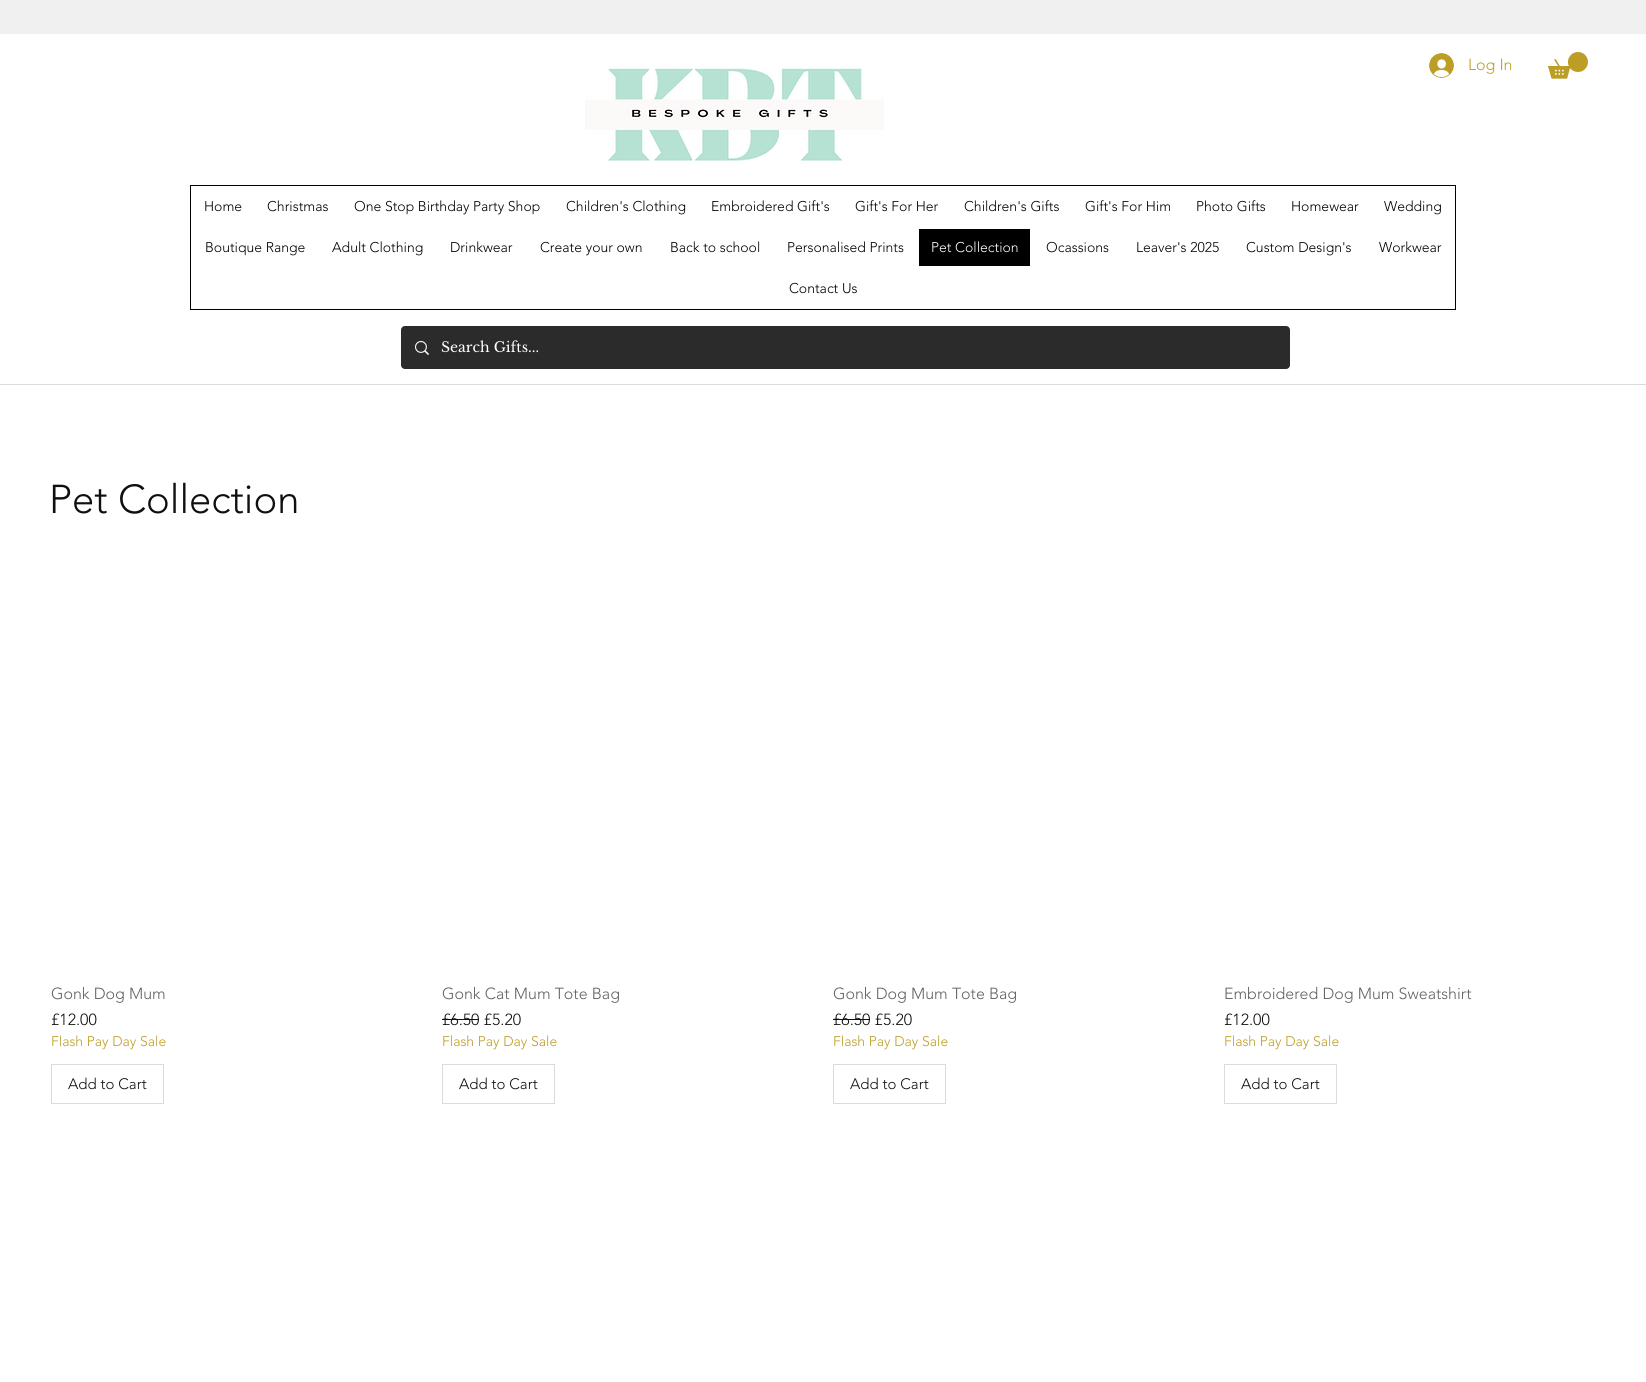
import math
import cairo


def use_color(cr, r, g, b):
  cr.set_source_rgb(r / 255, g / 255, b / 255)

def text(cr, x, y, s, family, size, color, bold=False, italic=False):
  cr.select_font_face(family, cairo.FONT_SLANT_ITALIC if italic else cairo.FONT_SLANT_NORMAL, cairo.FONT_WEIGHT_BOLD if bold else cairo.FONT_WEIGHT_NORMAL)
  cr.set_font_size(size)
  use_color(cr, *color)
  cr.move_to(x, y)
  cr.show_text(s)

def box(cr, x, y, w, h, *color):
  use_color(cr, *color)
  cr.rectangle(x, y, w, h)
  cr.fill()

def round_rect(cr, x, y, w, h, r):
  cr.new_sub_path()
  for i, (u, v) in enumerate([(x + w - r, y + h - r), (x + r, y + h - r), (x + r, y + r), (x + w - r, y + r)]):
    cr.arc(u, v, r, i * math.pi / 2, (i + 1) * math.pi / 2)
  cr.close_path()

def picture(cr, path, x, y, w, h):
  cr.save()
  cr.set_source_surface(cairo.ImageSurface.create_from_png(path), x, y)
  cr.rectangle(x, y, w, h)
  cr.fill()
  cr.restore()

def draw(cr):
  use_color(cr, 255, 255, 255)
  cr.paint()
  box(cr, 0, 0, 1646, 34, 240, 240, 240)
  picture(cr, "img_01.png", 1429, 53, 25, 25)
  picture(cr, "img_02.png", 1548, 52, 40, 27)
  picture(cr, "img_03.png", 585, 68, 299, 93)
  cr.rectangle(190.5, 185.5, 1265, 124)
  use_color(cr, 0, 0, 0)
  cr.set_line_width(1)
  cr.stroke()
  box(cr, 919, 229, 111, 37, 0, 0, 0)
  use_color(cr, 43, 43, 43)
  round_rect(cr, 401, 326, 889, 43, 4)
  cr.fill()
  picture(cr, "img_04.png", 415, 341, 14, 14)
  box(cr, 0, 384, 1646, 1, 219, 219, 219)
  cr.rectangle(51.5, 1064.5, 112, 39)
  cr.stroke()
  box(cr, 442, 1019, 37, 1, 15, 15, 15)
  cr.rectangle(442.5, 1064.5, 112, 39)
  use_color(cr, 219, 219, 219)
  cr.stroke()
  box(cr, 833, 1019, 37, 1, 15, 15, 15)
  cr.rectangle(833.5, 1064.5, 112, 39)
  use_color(cr, 219, 219, 219)
  cr.stroke()
  cr.rectangle(1224.5, 1064.5, 112, 39)
  cr.stroke()
  text(cr, 1468, 70, "Log In", "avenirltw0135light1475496 Light", 16, (188, 158, 39))
  text(cr, 204, 211, "Home", "avenirltw0135light1475496 Light", 14, (0, 0, 0))
  text(cr, 267, 211, "Christmas", "avenirltw0135light1475496 Light", 14, (0, 0, 0))
  text(cr, 354, 211, "One Stop Birthday Party Shop", "avenirltw0135light1475496 Light", 14, (0, 0, 0))
  text(cr, 566, 211, "Children's Clothing", "avenirltw0135light1475496 Light", 14, (0, 0, 0))
  text(cr, 711, 211, "Embroidered Gift's", "avenirltw0135light1475496 Light", 14, (0, 0, 0))
  text(cr, 855, 211, "Gift's For Her", "avenirltw0135light1475496 Light", 14, (0, 0, 0))
  text(cr, 964, 211, "Children's Gifts", "avenirltw0135light1475496 Light", 14, (0, 0, 0))
  text(cr, 1085, 211, "Gift's For Him", "avenirltw0135light1475496 Light", 14, (0, 0, 0))
  text(cr, 1196, 211, "Photo Gifts", "avenirltw0135light1475496 Light", 14, (0, 0, 0))
  text(cr, 1291, 211, "Homewear", "avenirltw0135light1475496 Light", 14, (0, 0, 0))
  text(cr, 1384, 211, "Wedding", "avenirltw0135light1475496 Light", 14, (0, 0, 0))
  text(cr, 205, 252, "Boutique Range", "avenirltw0135light1475496 Light", 14, (0, 0, 0))
  text(cr, 332, 252, "Adult Clothing", "avenirltw0135light1475496 Light", 14, (0, 0, 0))
  text(cr, 450, 252, "Drinkwear", "avenirltw0135light1475496 Light", 14, (0, 0, 0))
  text(cr, 540, 252, "Create your own", "avenirltw0135light1475496 Light", 14, (0, 0, 0))
  text(cr, 670, 252, "Back to school", "avenirltw0135light1475496 Light", 14, (0, 0, 0))
  text(cr, 787, 252, "Personalised Prints", "avenirltw0135light1475496 Light", 14, (0, 0, 0))
  text(cr, 931, 252, "Pet Collection", "avenirltw0135light1475496 Light", 14, (255, 255, 255))
  text(cr, 1046, 252, "Ocassions", "avenirltw0135light1475496 Light", 14, (0, 0, 0))
  text(cr, 1136, 252, "Leaver's 2025", "avenirltw0135light1475496 Light", 14, (0, 0, 0))
  text(cr, 1246, 252, "Custom Design's", "avenirltw0135light1475496 Light", 14, (0, 0, 0))
  text(cr, 1379, 252, "Workwear", "avenirltw0135light1475496 Light", 14, (0, 0, 0))
  text(cr, 789, 293, "Contact Us", "avenirltw0135light1475496 Light", 14, (0, 0, 0))
  text(cr, 441, 352, "Search Gifts...", "Libre Baskerville", 14, (255, 255, 255))
  text(cr, 49, 513, "Pet Collection", "avenirltw0135light1475496 Light", 40, (15, 15, 15))
  text(cr, 51, 999, "Gonk Dog Mum", "avenirltw0135light1475496 Light", 16, (98, 98, 98))
  text(cr, 51, 1025, "£12.00", "avenirltw0135light1475496 Light", 16, (15, 15, 15))
  text(cr, 51, 1046, "Flash Pay Day Sale", "avenirltw0135light1475496 Light", 14, (188, 158, 39))
  text(cr, 68, 1089, "Add to Cart", "avenirltw0135light1475496 Light", 15, (15, 15, 15))
  text(cr, 442, 999, "Gonk Cat Mum Tote Bag", "avenirltw0135light1475496 Light", 16, (98, 98, 98))
  text(cr, 442, 1025, "£6.50 £5.20", "avenirltw0135light1475496 Light", 16, (15, 15, 15))
  text(cr, 442, 1046, "Flash Pay Day Sale", "avenirltw0135light1475496 Light", 14, (188, 158, 39))
  text(cr, 459, 1089, "Add to Cart", "avenirltw0135light1475496 Light", 15, (15, 15, 15))
  text(cr, 833, 999, "Gonk Dog Mum Tote Bag", "avenirltw0135light1475496 Light", 16, (98, 98, 98))
  text(cr, 833, 1025, "£6.50 £5.20", "avenirltw0135light1475496 Light", 16, (15, 15, 15))
  text(cr, 833, 1046, "Flash Pay Day Sale", "avenirltw0135light1475496 Light", 14, (188, 158, 39))
  text(cr, 850, 1089, "Add to Cart", "avenirltw0135light1475496 Light", 15, (15, 15, 15))
  text(cr, 1224, 999, "Embroidered Dog Mum Sweatshirt", "avenirltw0135light1475496 Light", 16, (98, 98, 98))
  text(cr, 1224, 1025, "£12.00", "avenirltw0135light1475496 Light", 16, (15, 15, 15))
  text(cr, 1224, 1046, "Flash Pay Day Sale", "avenirltw0135light1475496 Light", 14, (188, 158, 39))
  text(cr, 1241, 1089, "Add to Cart", "avenirltw0135light1475496 Light", 15, (15, 15, 15))


surface = cairo.ImageSurface(cairo.FORMAT_RGB24, 1646, 1382)
cr = cairo.Context(surface)
options = cairo.FontOptions()
options.set_hint_metrics(cairo.HINT_METRICS_OFF)
options.set_hint_style(cairo.HINT_STYLE_NONE)
cr.set_font_options(options)
cr.set_miter_limit(4)
draw(cr)
surface.write_to_png("out.png")
